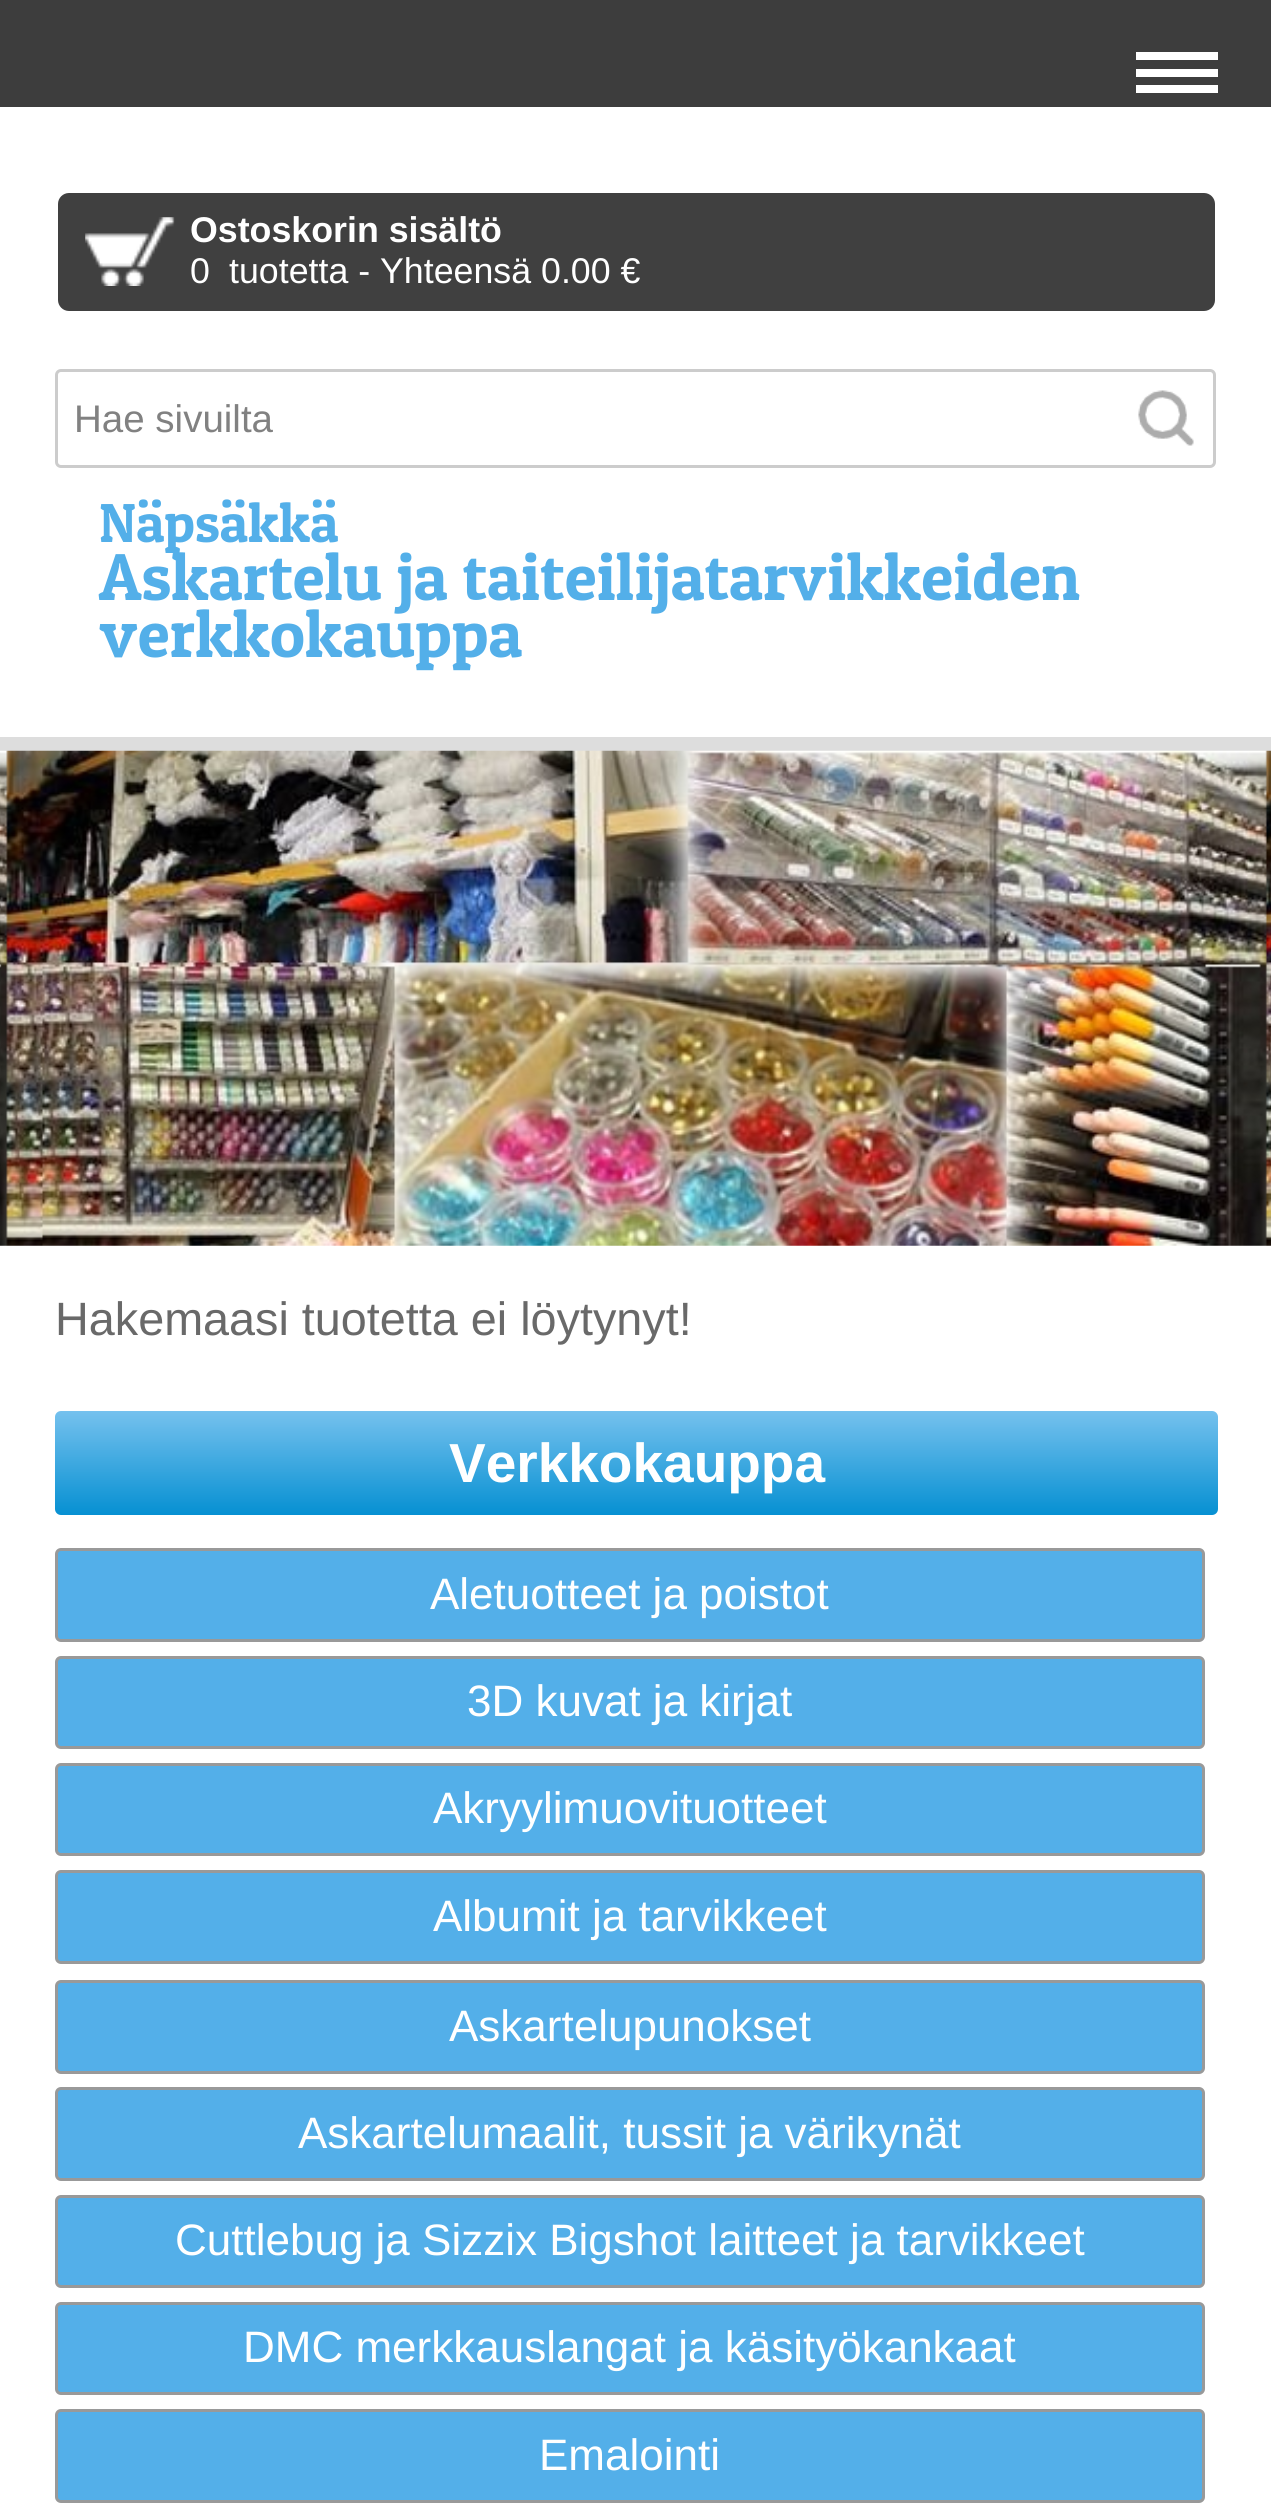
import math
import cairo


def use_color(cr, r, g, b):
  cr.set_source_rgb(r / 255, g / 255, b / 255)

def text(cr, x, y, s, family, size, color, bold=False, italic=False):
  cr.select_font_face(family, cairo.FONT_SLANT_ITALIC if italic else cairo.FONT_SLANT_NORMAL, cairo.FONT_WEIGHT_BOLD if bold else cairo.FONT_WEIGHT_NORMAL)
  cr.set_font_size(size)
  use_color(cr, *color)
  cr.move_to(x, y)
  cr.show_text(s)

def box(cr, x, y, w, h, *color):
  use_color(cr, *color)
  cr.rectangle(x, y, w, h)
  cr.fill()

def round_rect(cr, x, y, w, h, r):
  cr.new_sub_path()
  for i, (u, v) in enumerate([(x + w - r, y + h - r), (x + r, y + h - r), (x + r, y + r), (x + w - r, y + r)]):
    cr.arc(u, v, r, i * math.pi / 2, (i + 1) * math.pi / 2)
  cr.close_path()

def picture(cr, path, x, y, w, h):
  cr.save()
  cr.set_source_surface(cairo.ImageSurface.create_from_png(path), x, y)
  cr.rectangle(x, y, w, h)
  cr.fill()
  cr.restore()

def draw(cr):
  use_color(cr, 255, 255, 255)
  cr.paint()
  box(cr, 0, 0, 1271, 107, 61, 61, 61)
  box(cr, 1136, 52, 82, 8, 255, 255, 255)
  box(cr, 1136, 69, 82, 8, 255, 255, 255)
  box(cr, 1136, 85, 82, 8, 255, 255, 255)
  box(cr, 0, 737, 1271, 14, 221, 221, 221)
  use_color(cr, 64, 64, 64)
  round_rect(cr, 56.5, 191.5, 1160, 121, 12.5)
  cr.fill_preserve()
  use_color(cr, 255, 255, 255)
  cr.set_line_width(3)
  cr.stroke()
  picture(cr, "img_01.png", 85, 217, 90, 69)
  round_rect(cr, 56.5, 370.5, 1158, 96, 4.5)
  use_color(cr, 204, 204, 204)
  cr.stroke()
  picture(cr, "img_02.png", 1138, 390, 56, 56)
  picture(cr, "img_03.png", 0, 750, 1271, 496)
  gradient = cairo.LinearGradient(637, 1411, 637, 1515)
  gradient.add_color_stop_rgba(0, 0.459, 0.757, 0.933, 1)
  gradient.add_color_stop_rgba(1, 0.024, 0.565, 0.824, 1)
  cr.set_source(gradient)
  round_rect(cr, 55, 1411, 1163, 104, 6)
  cr.fill()
  use_color(cr, 83, 175, 233)
  round_rect(cr, 56.5, 1549.5, 1147, 91, 4.5)
  cr.fill_preserve()
  use_color(cr, 153, 153, 153)
  cr.stroke()
  use_color(cr, 83, 175, 233)
  round_rect(cr, 56.5, 1657.5, 1147, 90, 4.5)
  cr.fill_preserve()
  use_color(cr, 153, 153, 153)
  cr.stroke()
  use_color(cr, 83, 175, 233)
  round_rect(cr, 56.5, 1764.5, 1147, 90, 4.5)
  cr.fill_preserve()
  use_color(cr, 153, 153, 153)
  cr.stroke()
  use_color(cr, 83, 175, 233)
  round_rect(cr, 56.5, 1871.5, 1147, 91, 4.5)
  cr.fill_preserve()
  use_color(cr, 153, 153, 153)
  cr.stroke()
  use_color(cr, 83, 175, 233)
  round_rect(cr, 56.5, 1981.5, 1147, 91, 4.5)
  cr.fill_preserve()
  use_color(cr, 153, 153, 153)
  cr.stroke()
  use_color(cr, 83, 175, 233)
  round_rect(cr, 56.5, 2088.5, 1147, 91, 4.5)
  cr.fill_preserve()
  use_color(cr, 153, 153, 153)
  cr.stroke()
  use_color(cr, 83, 175, 233)
  round_rect(cr, 56.5, 2196.5, 1147, 90, 4.5)
  cr.fill_preserve()
  use_color(cr, 153, 153, 153)
  cr.stroke()
  use_color(cr, 83, 175, 233)
  round_rect(cr, 56.5, 2303.5, 1147, 90, 4.5)
  cr.fill_preserve()
  use_color(cr, 153, 153, 153)
  cr.stroke()
  use_color(cr, 83, 175, 233)
  round_rect(cr, 56.5, 2410.5, 1147, 91, 4.5)
  cr.fill_preserve()
  use_color(cr, 153, 153, 153)
  cr.stroke()
  text(cr, 190, 242, "Ostoskorin sisältö", "Liberation Sans", 35.75, (255, 255, 255), bold=True)
  text(cr, 190, 283, "0", "Liberation Sans", 35.75, (255, 255, 255))
  text(cr, 229, 283, "tuotetta - Yhteensä 0.00 €", "Liberation Sans", 35.75, (255, 255, 255))
  text(cr, 74, 432, "Hae sivuilta", "Liberation Sans", 38.5, (129, 129, 129))
  text(cr, 99, 542, "Näpsäkkä", "Patua One", 55, (83, 175, 233))
  text(cr, 99, 600, "Askartelu ja taiteilijatarvikkeiden", "Patua One", 66, (83, 175, 233))
  text(cr, 99, 657, "verkkokauppa", "Patua One", 66, (83, 175, 233))
  text(cr, 55, 1335, "Hakemaasi tuotetta ei löytynyt!", "Liberation Sans", 46.75, (105, 105, 105))
  text(cr, 449, 1482, "Verkkokauppa", "Liberation Sans", 55, (255, 255, 255), bold=True)
  text(cr, 430, 1609, "Aletuotteet ja poistot", "Liberation Sans", 44, (255, 255, 255))
  text(cr, 467, 1716, "3D kuvat ja kirjat", "Liberation Sans", 44, (255, 255, 255))
  text(cr, 433, 1823, "Akryylimuovituotteet", "Liberation Sans", 44, (255, 255, 255))
  text(cr, 433, 1931, "Albumit ja tarvikkeet", "Liberation Sans", 44, (255, 255, 255))
  text(cr, 449, 2041, "Askartelupunokset", "Liberation Sans", 44, (255, 255, 255))
  text(cr, 298, 2148, "Askartelumaalit, tussit ja värikynät", "Liberation Sans", 44, (255, 255, 255))
  text(cr, 175, 2255, "Cuttlebug ja Sizzix Bigshot laitteet ja tarvikkeet", "Liberation Sans", 44, (255, 255, 255))
  text(cr, 243, 2362, "DMC merkkauslangat ja käsityökankaat", "Liberation Sans", 44, (255, 255, 255))
  text(cr, 539, 2470, "Emalointi", "Liberation Sans", 44, (255, 255, 255))


surface = cairo.ImageSurface(cairo.FORMAT_RGB24, 1271, 2503)
cr = cairo.Context(surface)
options = cairo.FontOptions()
options.set_hint_metrics(cairo.HINT_METRICS_OFF)
options.set_hint_style(cairo.HINT_STYLE_NONE)
cr.set_font_options(options)
cr.set_miter_limit(4)
draw(cr)
surface.write_to_png("out.png")
